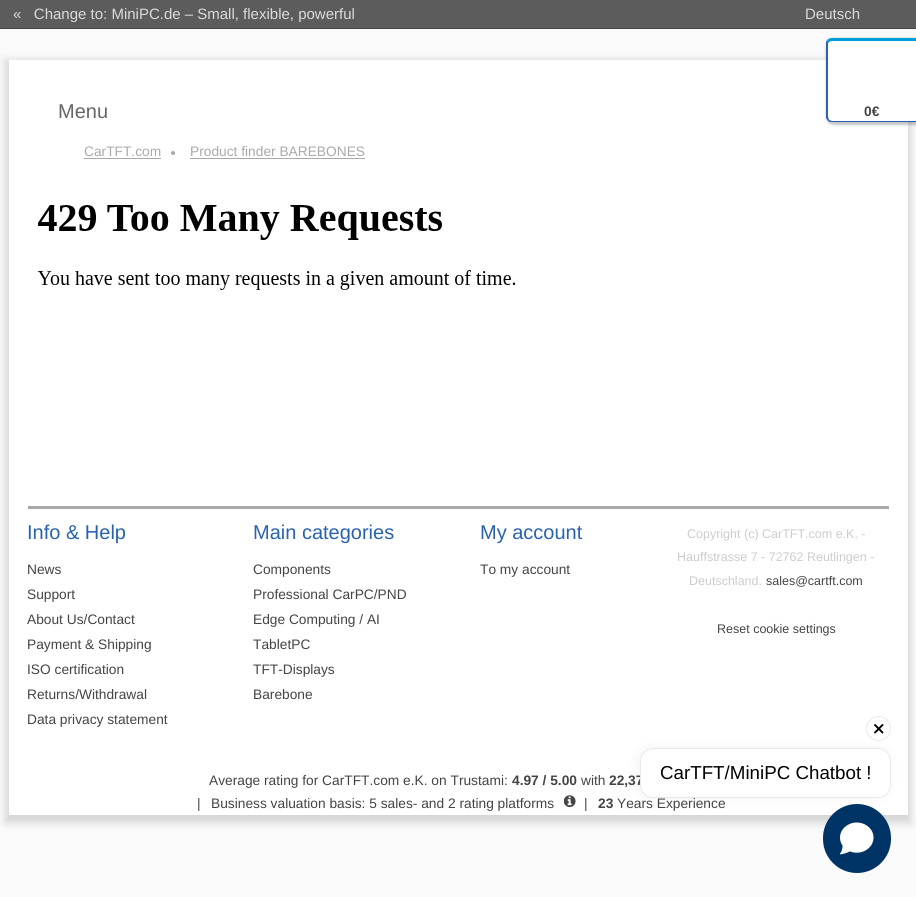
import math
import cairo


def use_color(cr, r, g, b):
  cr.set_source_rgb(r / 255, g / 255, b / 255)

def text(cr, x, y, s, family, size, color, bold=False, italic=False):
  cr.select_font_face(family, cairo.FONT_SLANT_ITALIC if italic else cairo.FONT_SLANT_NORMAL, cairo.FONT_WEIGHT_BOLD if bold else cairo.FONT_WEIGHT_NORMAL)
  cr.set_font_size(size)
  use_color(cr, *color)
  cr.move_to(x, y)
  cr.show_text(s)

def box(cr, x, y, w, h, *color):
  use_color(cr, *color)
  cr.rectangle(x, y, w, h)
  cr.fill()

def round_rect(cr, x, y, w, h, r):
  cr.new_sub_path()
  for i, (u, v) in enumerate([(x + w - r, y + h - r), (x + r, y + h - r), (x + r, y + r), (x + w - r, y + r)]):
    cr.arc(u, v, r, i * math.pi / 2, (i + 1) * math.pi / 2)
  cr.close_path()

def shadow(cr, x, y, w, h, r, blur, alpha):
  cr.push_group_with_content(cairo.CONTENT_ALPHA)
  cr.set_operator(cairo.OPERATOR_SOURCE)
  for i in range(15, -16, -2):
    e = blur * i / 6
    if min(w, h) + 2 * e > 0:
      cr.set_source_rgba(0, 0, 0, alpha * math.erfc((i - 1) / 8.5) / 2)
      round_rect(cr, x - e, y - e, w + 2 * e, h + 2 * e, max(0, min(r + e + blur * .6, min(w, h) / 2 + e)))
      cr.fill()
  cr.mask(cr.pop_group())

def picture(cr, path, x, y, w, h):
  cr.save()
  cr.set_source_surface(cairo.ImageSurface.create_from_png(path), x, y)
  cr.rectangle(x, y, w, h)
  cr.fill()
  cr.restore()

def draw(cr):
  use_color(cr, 250, 250, 250)
  cr.paint()
  box(cr, 0, 0, 916, 28, 92, 92, 92)
  box(cr, 0, 28, 916, 1, 68, 68, 68)
  use_color(cr, 68, 68, 68)
  shadow(cr, 5, 60, 906, 763, 0, 4, 0.2)
  box(cr, 9, 60, 899, 755, 255, 255, 255)
  box(cr, 84, 158, 77, 1, 169, 169, 169)
  cr.arc(173, 153, 2, 0, 2 * math.pi)
  cr.fill()
  box(cr, 190, 158, 175, 1, 169, 169, 169)
  picture(cr, "img_01.png", 37, 205, 479, 85)
  box(cr, 28, 506, 861, 3, 169, 169, 169)
  picture(cr, "img_02.png", 564, 795, 12, 13)
  use_color(cr, 68, 68, 68)
  shadow(cr, 826, 38, 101, 87, 8, 1, 0.3)
  use_color(cr, 255, 255, 255)
  cr.new_path()
  cr.move_to(832, 41)
  cr.line_to(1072, 41)
  cr.curve_to(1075, 41, 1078, 42, 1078, 44)
  cr.line_to(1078, 116)
  cr.curve_to(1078, 119, 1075, 121, 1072, 121)
  cr.line_to(832, 121)
  cr.curve_to(830, 121, 828, 119, 828, 116)
  cr.line_to(828, 44)
  cr.curve_to(828, 42, 830, 41, 832, 41)
  cr.close_path()
  cr.fill()
  use_color(cr, 0, 157, 218)
  cr.new_path()
  cr.move_to(832, 38)
  cr.curve_to(830, 38, 828, 39, 827, 40)
  cr.line_to(828, 43)
  cr.curve_to(829, 42, 830, 41, 832, 41)
  cr.line_to(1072, 41)
  cr.curve_to(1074, 41, 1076, 41, 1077, 42)
  cr.line_to(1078, 40)
  cr.curve_to(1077, 39, 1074, 38, 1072, 38)
  cr.close_path()
  cr.fill()
  use_color(cr, 40, 98, 176)
  cr.new_path()
  cr.move_to(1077, 121)
  cr.curve_to(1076, 122, 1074, 122, 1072, 122)
  cr.line_to(832, 122)
  cr.curve_to(831, 122, 829, 122, 828, 121)
  cr.line_to(829, 120)
  cr.curve_to(830, 120, 831, 121, 832, 121)
  cr.line_to(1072, 121)
  cr.curve_to(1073, 121, 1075, 121, 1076, 120)
  cr.close_path()
  cr.fill()
  cr.new_path()
  cr.move_to(826, 42)
  cr.line_to(827, 40)
  cr.line_to(828, 43)
  cr.line_to(828, 117)
  cr.line_to(829, 120)
  cr.line_to(828, 121)
  cr.line_to(826, 118)
  cr.close_path()
  cr.fill()
  use_color(cr, 0, 51, 102)
  round_rect(cr, 823, 804, 68, 69, 34)
  cr.fill()
  use_color(cr, 0, 0, 0)
  shadow(cr, 638, 748, 251, 50, 13, 6, 0.05)
  cr.arc(878.5, 728.5, 12, 0, 2 * math.pi)
  use_color(cr, 230, 233, 238)
  cr.set_line_width(1)
  cr.stroke()
  cr.new_path()
  cr.move_to(875, 732.5)
  cr.line_to(882.5, 725)
  cr.move_to(875, 725)
  cr.line_to(882.5, 732.5)
  use_color(cr, 0, 0, 0)
  cr.set_line_width(1.9)
  cr.set_line_cap(cairo.LINE_CAP_ROUND)
  cr.set_line_join(cairo.LINE_JOIN_ROUND)
  cr.stroke()
  picture(cr, "img_03.png", 840, 822, 34, 33)
  text(cr, 13, 19, "«   Change to: MiniPC.de – Small, flexible, powerful", "Liberation Sans", 15, (219, 219, 219))
  text(cr, 805, 19, "Deutsch", "Liberation Sans", 15, (219, 219, 219))
  text(cr, 58, 118, "Menu", "Liberation Sans", 20, (102, 102, 102))
  text(cr, 84, 156, "CarTFT.com", "Liberation Sans", 13.75, (169, 169, 169))
  text(cr, 190, 156, "Product finder BAREBONES", "Liberation Sans", 13.75, (169, 169, 169))
  text(cr, 27, 539, "Info & Help", "Liberation Sans", 20, (40, 98, 176))
  text(cr, 27, 574, "News", "Liberation Sans", 13.75, (68, 68, 68))
  text(cr, 27, 599, "Support", "Liberation Sans", 13.75, (68, 68, 68))
  text(cr, 27, 624, "About Us/Contact", "Liberation Sans", 13.75, (68, 68, 68))
  text(cr, 27, 649, "Payment & Shipping", "Liberation Sans", 13.75, (68, 68, 68))
  text(cr, 27, 674, "ISO certification", "Liberation Sans", 13.75, (68, 68, 68))
  text(cr, 27, 699, "Returns/Withdrawal", "Liberation Sans", 13.75, (68, 68, 68))
  text(cr, 27, 724, "Data privacy statement", "Liberation Sans", 13.75, (68, 68, 68))
  text(cr, 253, 539, "Main categories", "Liberation Sans", 20, (40, 98, 176))
  text(cr, 253, 574, "Components", "Liberation Sans", 13.75, (68, 68, 68))
  text(cr, 253, 599, "Professional CarPC/PND", "Liberation Sans", 13.75, (68, 68, 68))
  text(cr, 253, 624, "Edge Computing / AI", "Liberation Sans", 13.75, (68, 68, 68))
  text(cr, 253, 649, "TabletPC", "Liberation Sans", 13.75, (68, 68, 68))
  text(cr, 253, 674, "TFT-Displays", "Liberation Sans", 13.75, (68, 68, 68))
  text(cr, 253, 699, "Barebone", "Liberation Sans", 13.75, (68, 68, 68))
  text(cr, 480, 539, "My account", "Liberation Sans", 20, (40, 98, 176))
  text(cr, 480, 574, "To my account", "Liberation Sans", 13.75, (68, 68, 68))
  text(cr, 687, 538, "Copyright (c) CarTFT.com e.K. -", "Liberation Sans", 12.5, (204, 204, 204))
  text(cr, 677, 561, "Hauffstrasse 7 - 72762 Reutlingen -", "Liberation Sans", 12.5, (204, 204, 204))
  text(cr, 689, 585, "Deutschland.", "Liberation Sans", 12.5, (204, 204, 204))
  text(cr, 766, 585, "sales@cartft.com", "Liberation Sans", 12.5, (68, 68, 68))
  text(cr, 717, 633, "Reset cookie settings", "Liberation Sans", 12.5, (68, 68, 68))
  text(cr, 209, 785, "Average rating for CarTFT.com e.K. on Trustami:", "Liberation Sans", 13.75, (68, 68, 68))
  text(cr, 512, 785, "4.97 / 5.00", "Liberation Sans", 13.75, (68, 68, 68), bold=True)
  text(cr, 581, 785, "with", "Liberation Sans", 13.75, (68, 68, 68))
  text(cr, 609, 785, "22,37", "Liberation Sans", 13.75, (68, 68, 68), bold=True)
  text(cr, 197, 808, "|", "Liberation Sans", 13.75, (68, 68, 68))
  text(cr, 211, 808, "Business valuation basis: 5 sales- and 2 rating platforms", "Liberation Sans", 13.75, (68, 68, 68))
  text(cr, 584, 808, "|", "Liberation Sans", 13.75, (68, 68, 68))
  text(cr, 598, 808, "23", "Liberation Sans", 13.75, (68, 68, 68), bold=True)
  text(cr, 617, 808, "Years Experience", "Liberation Sans", 13.75, (68, 68, 68))
  text(cr, 864, 116, "0€", "Liberation Sans", 13.75, (68, 68, 68), bold=True)
  use_color(cr, 255, 255, 255)
  round_rect(cr, 640.5, 748.5, 250, 49, 12.5)
  cr.fill_preserve()
  use_color(cr, 230, 233, 238)
  cr.set_line_width(1)
  cr.set_line_cap(cairo.LINE_CAP_BUTT)
  cr.set_line_join(cairo.LINE_JOIN_MITER)
  cr.stroke()
  text(cr, 660, 779, "CarTFT/MiniPC Chatbot !", "Liberation Sans", 18.75, (0, 0, 0))


surface = cairo.ImageSurface(cairo.FORMAT_RGB24, 916, 897)
cr = cairo.Context(surface)
options = cairo.FontOptions()
options.set_hint_metrics(cairo.HINT_METRICS_OFF)
options.set_hint_style(cairo.HINT_STYLE_NONE)
cr.set_font_options(options)
cr.set_miter_limit(4)
draw(cr)
surface.write_to_png("out.png")
